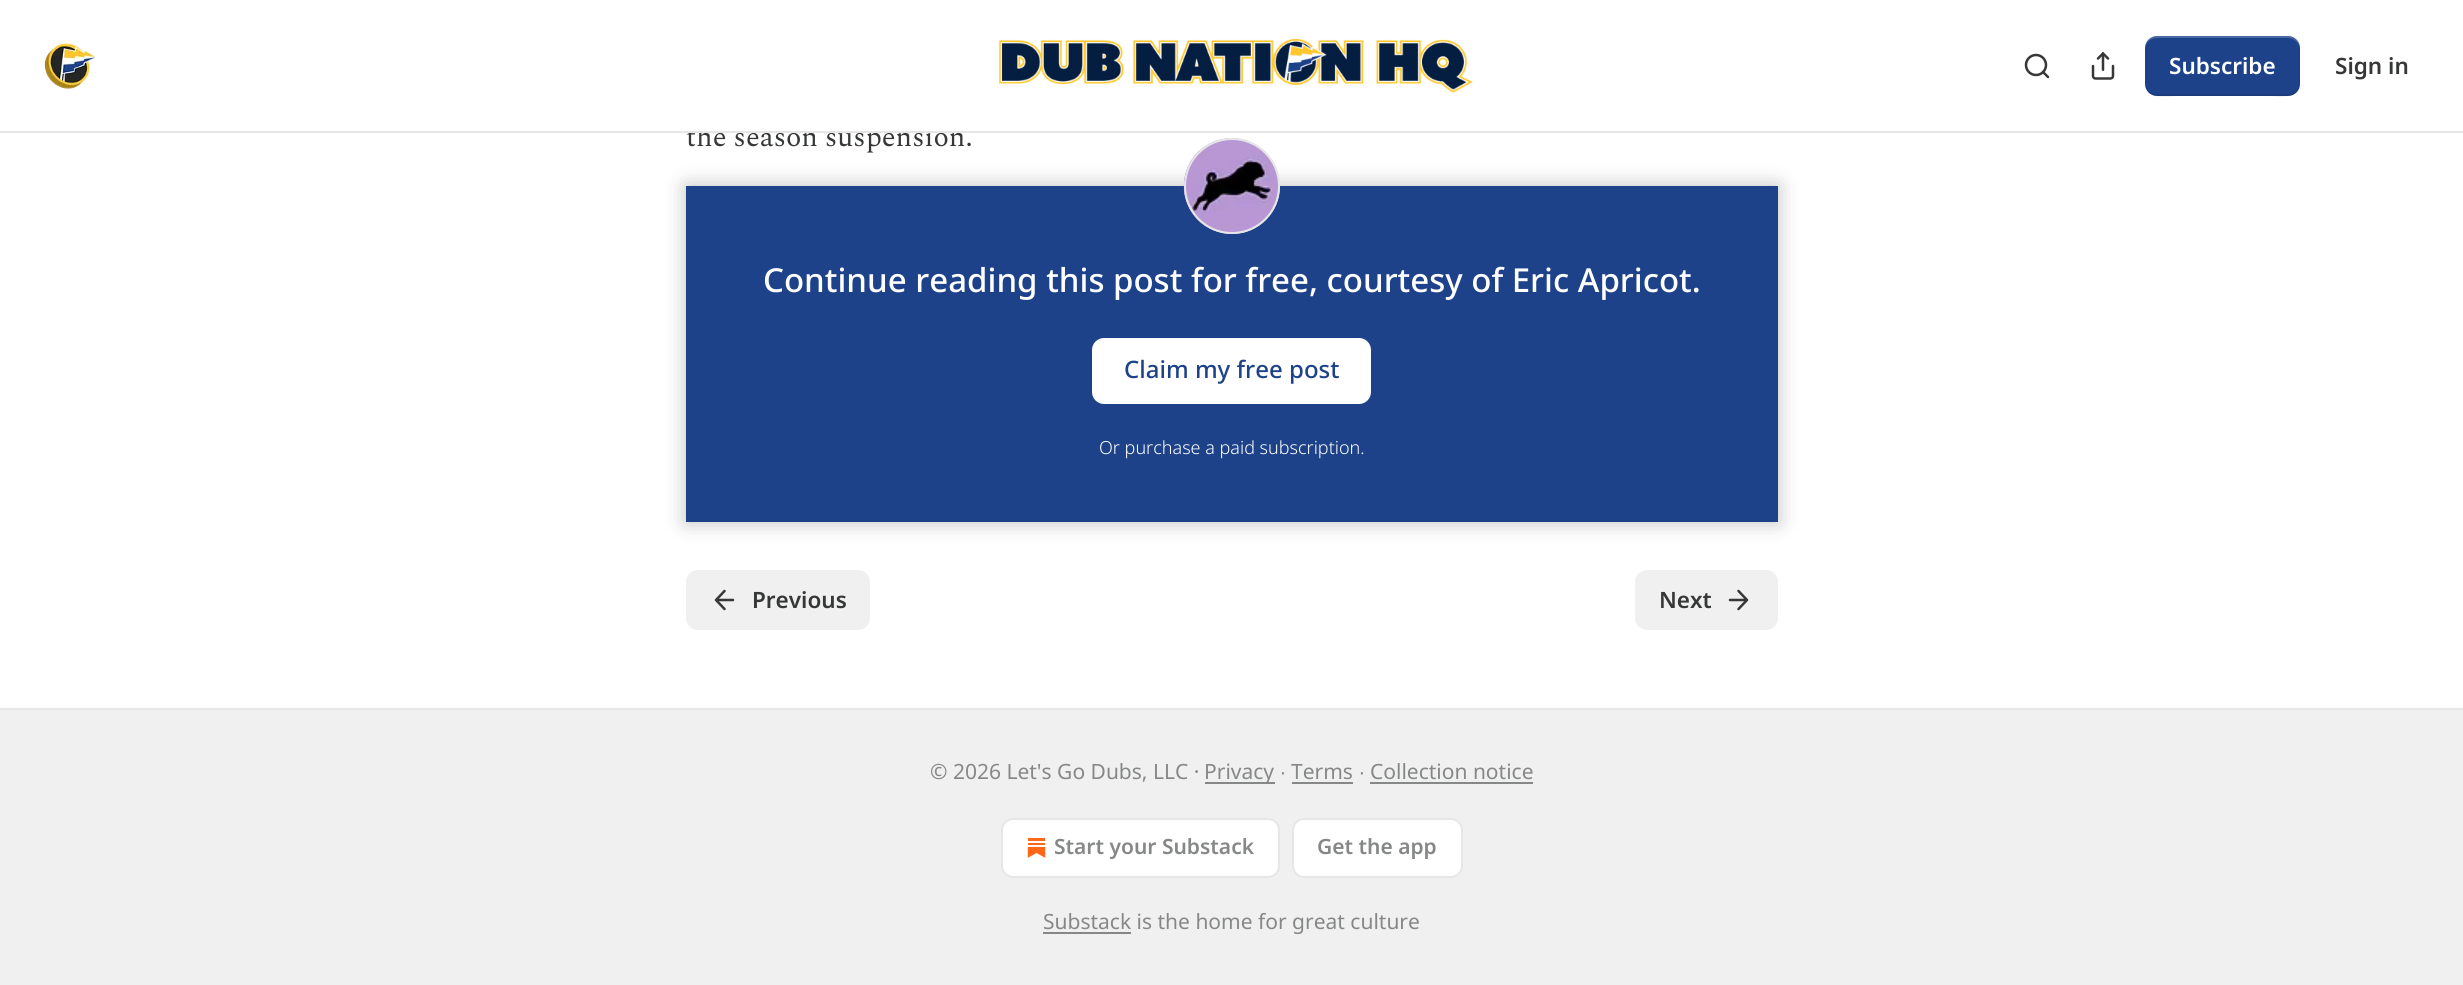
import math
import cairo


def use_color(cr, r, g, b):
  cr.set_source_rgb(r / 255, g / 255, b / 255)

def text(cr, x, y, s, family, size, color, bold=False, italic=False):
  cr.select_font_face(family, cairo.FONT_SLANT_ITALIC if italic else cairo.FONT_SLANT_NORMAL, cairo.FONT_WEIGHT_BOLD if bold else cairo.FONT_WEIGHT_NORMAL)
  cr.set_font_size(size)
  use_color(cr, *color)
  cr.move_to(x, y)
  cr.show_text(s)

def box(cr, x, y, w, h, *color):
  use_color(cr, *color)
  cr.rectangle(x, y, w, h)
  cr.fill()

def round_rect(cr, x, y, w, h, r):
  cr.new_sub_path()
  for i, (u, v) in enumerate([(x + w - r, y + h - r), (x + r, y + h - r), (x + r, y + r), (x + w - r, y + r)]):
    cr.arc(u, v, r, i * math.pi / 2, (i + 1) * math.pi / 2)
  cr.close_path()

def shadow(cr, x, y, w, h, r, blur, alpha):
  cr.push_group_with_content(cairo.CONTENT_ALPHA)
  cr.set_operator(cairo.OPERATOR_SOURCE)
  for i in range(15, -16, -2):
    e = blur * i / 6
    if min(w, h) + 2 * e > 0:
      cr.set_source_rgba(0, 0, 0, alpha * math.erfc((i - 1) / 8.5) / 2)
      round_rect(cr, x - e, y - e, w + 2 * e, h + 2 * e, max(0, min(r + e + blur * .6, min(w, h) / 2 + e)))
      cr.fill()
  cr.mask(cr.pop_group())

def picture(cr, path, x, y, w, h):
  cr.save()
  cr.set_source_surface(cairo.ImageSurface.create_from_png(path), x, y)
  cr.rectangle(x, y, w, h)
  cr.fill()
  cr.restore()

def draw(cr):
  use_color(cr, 255, 255, 255)
  cr.paint()
  picture(cr, "img_01.png", 44, 43, 52, 46)
  picture(cr, "img_02.png", 999, 39, 474, 54)
  cr.arc(2036, 65, 10, 0, 2 * math.pi)
  use_color(cr, 54, 55, 55)
  cr.set_line_width(2.5)
  cr.stroke()
  cr.new_path()
  cr.move_to(2048, 77)
  cr.line_to(2043, 72)
  cr.set_line_cap(cairo.LINE_CAP_ROUND)
  cr.set_line_join(cairo.LINE_JOIN_ROUND)
  cr.stroke()
  picture(cr, "img_03.png", 2091, 52, 24, 28)
  use_color(cr, 29, 66, 138)
  round_rect(cr, 2145, 36, 155, 60, 12)
  cr.fill()
  cr.set_source_rgba(0, 0, 0, 0.1)
  cr.new_path()
  cr.move_to(2145, 82)
  cr.curve_to(2145, 101, 2165, 96, 2179, 96)
  cr.line_to(2266, 96)
  cr.curve_to(2280, 96, 2300, 101, 2300, 82)
  cr.curve_to(2300, 89, 2294, 94, 2288, 94)
  cr.line_to(2157, 94)
  cr.curve_to(2150, 94, 2145, 89, 2145, 82)
  cr.close_path()
  cr.fill()
  cr.set_source_rgba(1, 1, 1, 0.2)
  cr.new_path()
  cr.move_to(2157, 38)
  cr.line_to(2288, 38)
  cr.curve_to(2294, 38, 2300, 43, 2300, 50)
  cr.curve_to(2300, 31, 2280, 36, 2266, 36)
  cr.line_to(2179, 36)
  cr.curve_to(2165, 36, 2145, 31, 2145, 50)
  cr.curve_to(2145, 43, 2150, 38, 2157, 38)
  cr.close_path()
  cr.fill()
  box(cr, 686, 186, 1092, 336, 29, 66, 138)
  use_color(cr, 255, 255, 255)
  round_rect(cr, 1093, 339, 277, 64, 11)
  cr.fill_preserve()
  cr.set_line_width(2)
  cr.set_line_cap(cairo.LINE_CAP_BUTT)
  cr.set_line_join(cairo.LINE_JOIN_MITER)
  cr.stroke()
  cr.save()
  cr.set_fill_rule(cairo.FILL_RULE_EVEN_ODD)
  cr.new_path()
  cr.move_to(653, 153)
  cr.line_to(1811, 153)
  cr.line_to(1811, 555)
  cr.line_to(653, 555)
  cr.close_path()
  cr.move_to(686, 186)
  cr.line_to(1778, 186)
  cr.line_to(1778, 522)
  cr.line_to(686, 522)
  cr.close_path()
  cr.clip()
  use_color(cr, 0, 0, 0)
  shadow(cr, 686, 186, 1092, 336, 0, 10.5, 0.25)
  cr.restore()
  cr.arc(1232, 186, 47, 0, 2 * math.pi)
  use_color(cr, 230, 230, 230)
  cr.stroke()
  picture(cr, "img_04.png", 1183, 138, 97, 96)
  cr.arc(1232, 186, 47, 0, 2 * math.pi)
  cr.stroke()
  use_color(cr, 240, 240, 240)
  round_rect(cr, 686, 570, 184, 60, 12)
  cr.fill()
  cr.new_path()
  cr.move_to(724.5, 609)
  cr.line_to(716, 600)
  cr.line_to(724.5, 591)
  cr.move_to(733, 600)
  cr.line_to(716, 600)
  use_color(cr, 54, 55, 55)
  cr.set_line_width(2.5)
  cr.set_line_cap(cairo.LINE_CAP_ROUND)
  cr.set_line_join(cairo.LINE_JOIN_ROUND)
  cr.stroke()
  use_color(cr, 240, 240, 240)
  round_rect(cr, 1635, 570, 143, 60, 12)
  cr.fill()
  cr.new_path()
  cr.move_to(1730, 600)
  cr.line_to(1747, 600)
  cr.move_to(1738.5, 591)
  cr.line_to(1747, 600)
  cr.line_to(1738.5, 609)
  use_color(cr, 54, 55, 55)
  cr.stroke()
  box(cr, 0, 710, 2463, 275, 240, 240, 240)
  box(cr, 0, 708, 2463, 2, 230, 230, 230)
  box(cr, 1205, 782, 70, 2, 134, 135, 135)
  box(cr, 1292, 782, 61, 2, 134, 135, 135)
  box(cr, 1370, 782, 163, 2, 134, 135, 135)
  use_color(cr, 255, 255, 255)
  round_rect(cr, 1002, 819, 277, 58, 11)
  cr.fill_preserve()
  use_color(cr, 230, 230, 230)
  cr.set_line_width(2)
  cr.set_line_cap(cairo.LINE_CAP_BUTT)
  cr.set_line_join(cairo.LINE_JOIN_MITER)
  cr.stroke()
  picture(cr, "img_05.png", 1027, 838, 19, 20)
  use_color(cr, 255, 255, 255)
  round_rect(cr, 1293, 819, 169, 58, 11)
  cr.fill_preserve()
  use_color(cr, 230, 230, 230)
  cr.stroke()
  box(cr, 1043, 932, 88, 2, 134, 135, 135)
  text(cr, 2169, 74, "Subscribe", "Noto Sans SemiBold", 22.5, (255, 255, 255))
  text(cr, 2335, 74, "Sign in", "Noto Sans SemiBold", 22.5, (54, 55, 55))
  text(cr, 686, 146, "the season suspension.", "Spectral", 28.5, (54, 55, 55))
  box(cr, 0, 131, 2463, 2, 230, 230, 230)
  box(cr, 689, 124, 242, 7, 255, 255, 255)
  text(cr, 763, 292, "Continue reading this post for free, courtesy of Eric Apricot.", "Noto Sans Medium", 33, (255, 255, 255))
  text(cr, 1124, 378, "Claim my free post", "Noto Sans Medium", 24, (29, 66, 138))
  text(cr, 1099, 454, "Or purchase a paid subscription.", "Noto Sans Light", 18, (255, 255, 255))
  text(cr, 752, 608, "Previous", "Noto Sans SemiBold", 22.5, (54, 55, 55))
  text(cr, 1659, 608, "Next", "Noto Sans SemiBold", 22.5, (54, 55, 55))
  text(cr, 930, 779, "© 2026 Let's Go Dubs, LLC ·", "Noto Sans", 21, (134, 135, 135))
  text(cr, 1204, 779, "Privacy", "Noto Sans", 21, (134, 135, 135))
  text(cr, 1280, 779, "∙", "Liberation Sans", 21, (134, 135, 135))
  text(cr, 1291, 779, "Terms", "Noto Sans", 21, (134, 135, 135))
  text(cr, 1359, 779, "∙", "Liberation Sans", 21, (134, 135, 135))
  text(cr, 1370, 779, "Collection notice", "Noto Sans", 21, (134, 135, 135))
  text(cr, 1054, 854, "Start your Substack", "Noto Sans SemiBold", 21, (134, 135, 135))
  text(cr, 1317, 854, "Get the app", "Noto Sans SemiBold", 21, (134, 135, 135))
  text(cr, 1043, 929, "Substack is the home for great culture", "Noto Sans", 21, (134, 135, 135))


surface = cairo.ImageSurface(cairo.FORMAT_RGB24, 2463, 985)
cr = cairo.Context(surface)
options = cairo.FontOptions()
options.set_hint_metrics(cairo.HINT_METRICS_OFF)
options.set_hint_style(cairo.HINT_STYLE_NONE)
cr.set_font_options(options)
cr.set_miter_limit(4)
draw(cr)
surface.write_to_png("out.png")
